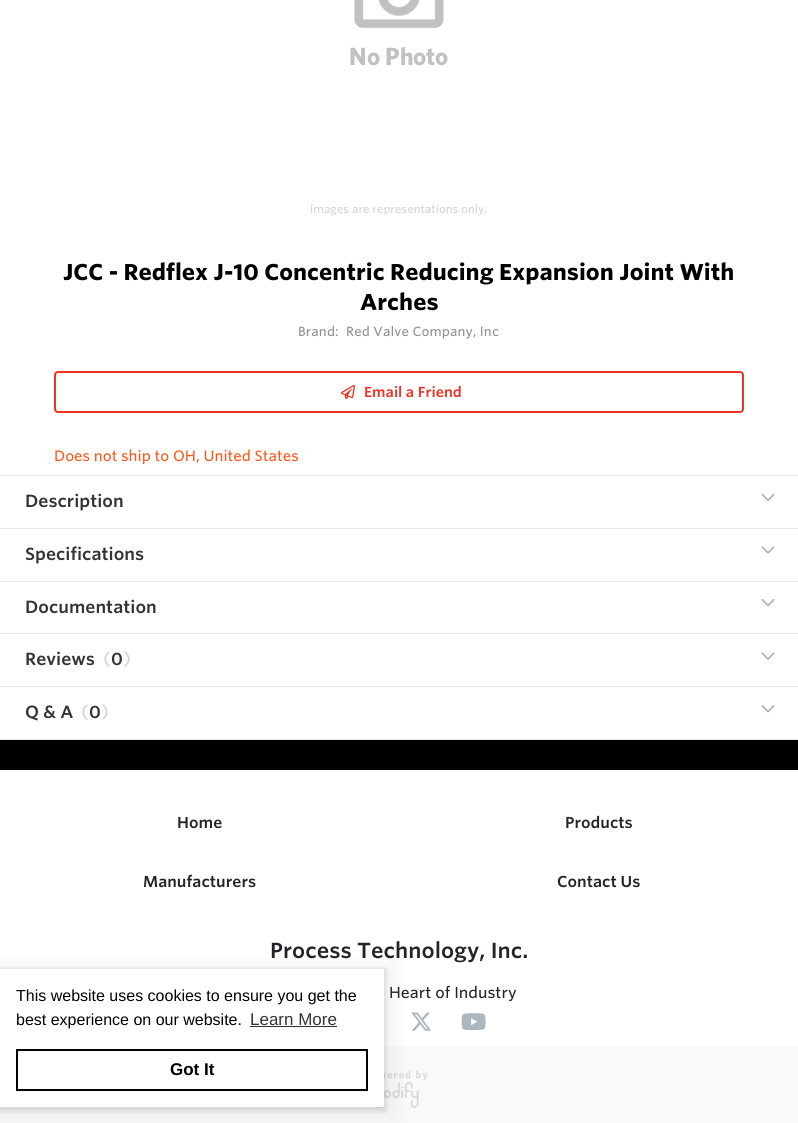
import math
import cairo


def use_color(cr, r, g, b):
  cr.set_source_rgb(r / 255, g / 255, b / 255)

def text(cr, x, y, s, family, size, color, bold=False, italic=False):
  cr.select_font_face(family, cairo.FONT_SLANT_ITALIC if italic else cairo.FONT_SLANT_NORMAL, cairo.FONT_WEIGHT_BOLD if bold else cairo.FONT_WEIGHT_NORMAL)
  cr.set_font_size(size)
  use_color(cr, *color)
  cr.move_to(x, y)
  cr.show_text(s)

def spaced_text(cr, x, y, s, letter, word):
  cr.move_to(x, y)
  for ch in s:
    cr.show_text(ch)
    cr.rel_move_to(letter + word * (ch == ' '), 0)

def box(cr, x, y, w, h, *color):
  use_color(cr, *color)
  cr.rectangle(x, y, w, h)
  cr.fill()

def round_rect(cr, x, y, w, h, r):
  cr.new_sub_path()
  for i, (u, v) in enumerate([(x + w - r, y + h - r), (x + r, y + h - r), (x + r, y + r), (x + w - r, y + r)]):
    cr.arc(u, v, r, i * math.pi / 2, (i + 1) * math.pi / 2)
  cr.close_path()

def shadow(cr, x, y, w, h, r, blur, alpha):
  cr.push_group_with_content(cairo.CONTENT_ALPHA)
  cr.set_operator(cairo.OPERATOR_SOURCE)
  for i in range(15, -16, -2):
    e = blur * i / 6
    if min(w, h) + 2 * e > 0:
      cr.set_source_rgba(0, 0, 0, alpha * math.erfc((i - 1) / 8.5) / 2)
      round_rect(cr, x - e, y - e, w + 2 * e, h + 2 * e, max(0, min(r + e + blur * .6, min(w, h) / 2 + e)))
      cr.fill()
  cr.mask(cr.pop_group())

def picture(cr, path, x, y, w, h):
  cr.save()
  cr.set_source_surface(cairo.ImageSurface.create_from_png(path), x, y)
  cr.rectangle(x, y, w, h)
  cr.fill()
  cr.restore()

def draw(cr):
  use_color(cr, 255, 255, 255)
  cr.paint()
  picture(cr, "img_01.png", 350, 0, 98, 66)
  round_rect(cr, 55, 372, 688, 40, 3)
  use_color(cr, 239, 49, 37)
  cr.stroke()
  picture(cr, "img_02.png", 341, 385, 14, 14)
  box(cr, 0, 475, 798, 1, 233, 236, 239)
  box(cr, 0, 528, 798, 1, 233, 236, 239)
  picture(cr, "img_03.png", 761, 493, 14, 8)
  box(cr, 0, 581, 798, 1, 233, 236, 239)
  picture(cr, "img_04.png", 761, 546, 14, 8)
  box(cr, 0, 633, 798, 1, 233, 236, 239)
  picture(cr, "img_05.png", 761, 599, 14, 8)
  box(cr, 0, 686, 798, 1, 233, 236, 239)
  picture(cr, "img_06.png", 761, 652, 14, 8)
  box(cr, 0, 739, 798, 1, 233, 236, 239)
  picture(cr, "img_07.png", 761, 705, 14, 8)
  box(cr, 0, 740, 798, 30, 0, 0, 0)
  box(cr, 0, 1046, 798, 77, 248, 249, 250)
  picture(cr, "img_08.png", 411, 1012, 21, 19)
  picture(cr, "img_09.png", 461, 1013, 25, 17)
  picture(cr, "img_10.png", 375, 1070, 53, 38)
  use_color(cr, 0, 0, 0)
  shadow(cr, -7, 962, 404, 158, 0, 8, 0.04)
  shadow(cr, -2, 969, 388, 142, 0, 2.5, 0.12)
  box(cr, 0, 969, 384, 138, 255, 255, 255)
  box(cr, 250, 1026, 87, 1, 51, 51, 51)
  cr.rectangle(17, 1050, 350, 40)
  use_color(cr, 0, 0, 0)
  cr.stroke()
  text(cr, 310, 213, "Images are representations only.", "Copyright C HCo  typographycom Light", 11, (206, 212, 218))
  text(cr, 63, 280, "JCC - Redflex J-10 Concentric Reducing Expansion Joint With", "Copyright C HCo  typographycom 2", 22, (0, 0, 0))
  text(cr, 360, 310, "Arches", "Copyright C HCo  typographycom 2", 22, (0, 0, 0))
  cr.select_font_face("Copyright C HCo  typographycom Light")
  cr.set_font_size(12.75)
  use_color(cr, 144, 144, 144)
  spaced_text(cr, 298, 336, "Brand:", 0.1, 0)
  spaced_text(cr, 346, 336, "Red Valve Company, Inc", 0.1, 0)
  text(cr, 364, 397, "Email a Friend", "Copyright C HCo  typographycom", 14, (239, 49, 37))
  text(cr, 54, 461, "Does not ship to OH, United States", "Copyright C HCo  typographycom Light", 14.4, (253, 88, 28))
  text(cr, 25, 507, "Description", "Copyright C HCo  typographycom", 17, (51, 51, 51))
  text(cr, 25, 560, "Specifications", "Copyright C HCo  typographycom", 17, (51, 51, 51))
  text(cr, 25, 613, "Documentation", "Copyright C HCo  typographycom", 17, (51, 51, 51))
  text(cr, 25, 665, "Reviews", "Copyright C HCo  typographycom", 17, (51, 51, 51))
  text(cr, 103, 665, "(", "Copyright C HCo  typographycom Light", 17, (206, 212, 218))
  text(cr, 111, 665, "0", "Copyright C HCo  typographycom", 17, (51, 51, 51))
  text(cr, 123, 665, ")", "Copyright C HCo  typographycom Light", 17, (206, 212, 218))
  text(cr, 25, 718, "Q & A", "Copyright C HCo  typographycom", 17, (51, 51, 51))
  text(cr, 81, 718, "(", "Copyright C HCo  typographycom Light", 17, (206, 212, 218))
  text(cr, 89, 718, "0", "Copyright C HCo  typographycom", 17, (51, 51, 51))
  text(cr, 101, 718, ")", "Copyright C HCo  typographycom Light", 17, (206, 212, 218))
  text(cr, 177, 828, "Home", "Copyright C HCo  typographycom", 15.25, (33, 37, 41))
  text(cr, 565, 828, "Products", "Copyright C HCo  typographycom", 15.25, (33, 37, 41))
  text(cr, 143, 887, "Manufacturers", "Copyright C HCo  typographycom", 15.25, (33, 37, 41))
  text(cr, 557, 887, "Contact Us", "Copyright C HCo  typographycom", 15.25, (33, 37, 41))
  text(cr, 270, 958, "Process Technology, Inc.", "Copyright C HCo  typographycom", 21, (33, 37, 41))
  text(cr, 389, 998, "Heart of Industry", "Copyright C HCo  typographycom Light", 15.25, (33, 37, 41))
  text(cr, 16, 1001, "This website uses cookies to ensure you get the", "Liberation Sans", 16, (0, 0, 0))
  text(cr, 16, 1025, "best experience on our website.", "Liberation Sans", 16, (0, 0, 0))
  text(cr, 250, 1025, "Learn More", "Liberation Sans", 17, (51, 51, 51))
  text(cr, 170, 1075, "Got It", "Liberation Sans", 17, (0, 0, 0), bold=True)


surface = cairo.ImageSurface(cairo.FORMAT_RGB24, 798, 1123)
cr = cairo.Context(surface)
options = cairo.FontOptions()
options.set_hint_metrics(cairo.HINT_METRICS_OFF)
options.set_hint_style(cairo.HINT_STYLE_NONE)
cr.set_font_options(options)
cr.set_miter_limit(4)
draw(cr)
surface.write_to_png("out.png")
